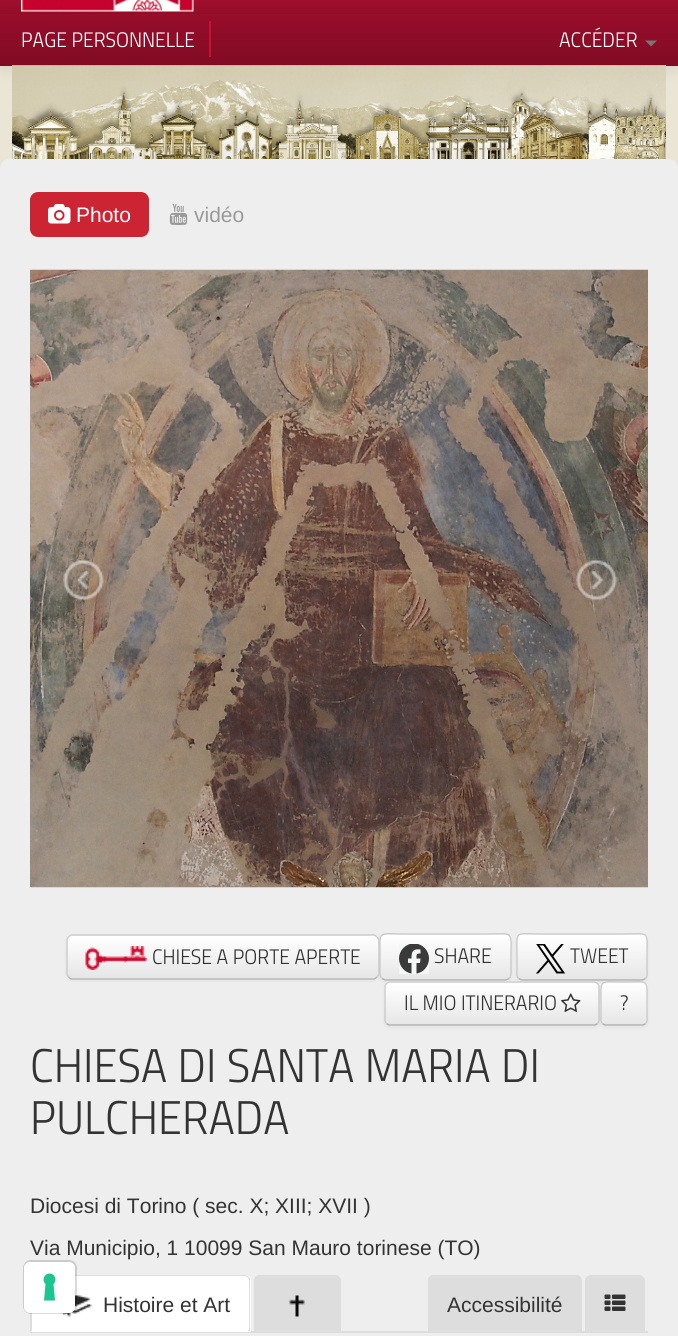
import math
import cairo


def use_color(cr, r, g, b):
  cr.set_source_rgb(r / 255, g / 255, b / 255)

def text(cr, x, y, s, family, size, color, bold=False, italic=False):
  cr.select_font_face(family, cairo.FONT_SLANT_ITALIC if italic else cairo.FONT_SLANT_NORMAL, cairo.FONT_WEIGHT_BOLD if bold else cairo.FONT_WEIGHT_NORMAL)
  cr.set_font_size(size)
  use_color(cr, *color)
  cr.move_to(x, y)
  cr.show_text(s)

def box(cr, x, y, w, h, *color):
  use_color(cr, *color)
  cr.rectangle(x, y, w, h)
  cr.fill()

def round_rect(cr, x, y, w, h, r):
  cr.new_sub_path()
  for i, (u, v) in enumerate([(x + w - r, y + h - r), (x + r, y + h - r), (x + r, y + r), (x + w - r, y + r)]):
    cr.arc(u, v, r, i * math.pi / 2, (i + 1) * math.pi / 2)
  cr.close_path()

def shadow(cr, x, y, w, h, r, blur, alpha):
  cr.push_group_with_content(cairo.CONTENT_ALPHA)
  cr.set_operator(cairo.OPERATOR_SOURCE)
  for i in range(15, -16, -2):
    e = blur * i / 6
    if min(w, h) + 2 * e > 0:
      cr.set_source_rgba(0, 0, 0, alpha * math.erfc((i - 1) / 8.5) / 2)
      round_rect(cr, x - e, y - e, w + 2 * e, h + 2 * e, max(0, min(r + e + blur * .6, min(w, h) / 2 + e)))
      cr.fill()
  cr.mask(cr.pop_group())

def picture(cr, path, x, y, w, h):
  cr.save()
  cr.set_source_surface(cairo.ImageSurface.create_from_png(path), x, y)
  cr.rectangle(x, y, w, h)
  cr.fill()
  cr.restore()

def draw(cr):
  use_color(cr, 234, 229, 213)
  cr.paint()
  gradient = cairo.LinearGradient(339, -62, 339, 14)
  gradient.add_color_stop_rgba(0, 0.78, 0.067, 0.216, 1)
  gradient.add_color_stop_rgba(1, 0.596, 0.051, 0.165, 1)
  cr.set_source(gradient)
  cr.rectangle(0, 0, 678, 14)
  cr.fill()
  use_color(cr, 0, 0, 0)
  shadow(cr, 0, 15, 678, 53, 0, 7.5, 0.1)
  picture(cr, "img_01.png", 21, 0, 173, 12)
  gradient = cairo.LinearGradient(339, 13, 339, 66)
  gradient.add_color_stop_rgba(0, 0.596, 0.051, 0.165, 1)
  gradient.add_color_stop_rgba(1, 0.506, 0.043, 0.141, 1)
  cr.set_source(gradient)
  cr.rectangle(0, 14, 678, 52)
  cr.fill()
  box(cr, 209, 21, 2, 36, 199, 17, 55)
  use_color(cr, 119, 119, 119)
  cr.new_path()
  cr.move_to(645, 40.5)
  cr.line_to(657, 40.5)
  cr.line_to(651, 46.5)
  cr.close_path()
  cr.fill()
  picture(cr, "img_02.png", 12, 65, 654, 1)
  picture(cr, "img_03.png", 12, 65, 654, 1)
  picture(cr, "img_04.png", 12, 65, 654, 94)
  use_color(cr, 0, 0, 0)
  shadow(cr, 0, 161, 678, 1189, 9, 1.5, 0.15)
  use_color(cr, 238, 238, 238)
  round_rect(cr, 0, 159, 678, 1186, 9)
  cr.fill()
  use_color(cr, 205, 36, 51)
  round_rect(cr, 30, 192, 119, 45, 8)
  cr.fill()
  picture(cr, "img_05.png", 48, 204, 23, 20)
  picture(cr, "img_06.png", 169, 204, 19, 21)
  picture(cr, "img_07.png", 30, 269, 618, 619)
  picture(cr, "img_08.png", 63, 560, 41, 40)
  picture(cr, "img_09.png", 576, 560, 41, 40)
  use_color(cr, 0, 0, 0)
  shadow(cr, 66, 936, 314, 45, 6, 1.5, 0.05)
  use_color(cr, 245, 245, 245)
  round_rect(cr, 66, 935, 314, 45, 6)
  cr.fill()
  cr.save()
  round_rect(cr, 66, 935, 314, 45, 6)
  cr.clip()
  gradient = cairo.LinearGradient(223, 936, 223, 978)
  gradient.add_color_stop_rgba(0, 1, 1, 1, 1)
  gradient.add_color_stop_rgba(1, 0.902, 0.902, 0.902, 1)
  cr.set_source(gradient)
  cr.rectangle(66, 936, 314, 42)
  cr.fill()
  cr.restore()
  cr.new_path()
  cr.move_to(377, 977)
  cr.curve_to(376, 978, 375, 979, 373.5, 979)
  cr.line_to(72, 979)
  cr.curve_to(70.5, 979, 69.5, 978, 68.5, 977)
  use_color(cr, 179, 179, 179)
  cr.set_line_width(1.5)
  cr.stroke()
  cr.new_path()
  cr.move_to(68.5, 977)
  cr.curve_to(67.5, 976, 67, 975, 67, 973.5)
  cr.line_to(67, 940.5)
  cr.curve_to(67, 939, 67.5, 938, 68.5, 937)
  cr.curve_to(69.5, 936, 70.5, 935, 72, 935)
  cr.line_to(373.5, 935)
  cr.curve_to(375, 935, 376, 936, 377, 937)
  cr.curve_to(378, 938, 379, 939, 379, 940.5)
  cr.line_to(379, 973.5)
  cr.curve_to(379, 975, 378, 976, 377, 977)
  use_color(cr, 204, 204, 204)
  cr.stroke()
  picture(cr, "img_10.png", 85, 946, 62, 24)
  use_color(cr, 0, 0, 0)
  shadow(cr, 380, 935, 132, 48, 6, 1.5, 0.05)
  use_color(cr, 245, 245, 245)
  round_rect(cr, 380, 933, 132, 48, 6)
  cr.fill()
  cr.save()
  round_rect(cr, 380, 933, 132, 48, 6)
  cr.clip()
  gradient = cairo.LinearGradient(446, 935, 446, 980)
  gradient.add_color_stop_rgba(0, 1, 1, 1, 1)
  gradient.add_color_stop_rgba(1, 0.902, 0.902, 0.902, 1)
  cr.set_source(gradient)
  cr.rectangle(380, 935, 132, 45)
  cr.fill()
  cr.restore()
  cr.new_path()
  cr.move_to(509, 978.5)
  cr.line_to(506, 980)
  cr.line_to(385, 980)
  cr.line_to(382, 978.5)
  use_color(cr, 179, 179, 179)
  cr.stroke()
  cr.new_path()
  cr.move_to(382, 978.5)
  cr.curve_to(379.5, 976.5, 380, 972, 380, 969)
  cr.line_to(380, 957)
  cr.curve_to(380, 929.5, 376.5, 934, 405.5, 934)
  cr.line_to(485.5, 934)
  cr.curve_to(514.5, 934, 511, 929.5, 511, 957)
  cr.line_to(511, 969)
  cr.curve_to(511, 972, 511.5, 976.5, 509, 978.5)
  use_color(cr, 204, 204, 204)
  cr.stroke()
  box(cr, 399, 944, 30, 30, 245, 246, 246)
  cr.save()
  cr.rectangle(399, 944, 30, 30)
  cr.clip()
  use_color(cr, 58, 58, 58)
  cr.new_path()
  cr.move_to(429, 958.5)
  cr.curve_to(429, 950.5, 422.5, 943.5, 414, 943.5)
  cr.curve_to(405.5, 943.5, 399, 950.5, 399, 958.5)
  cr.curve_to(399, 966, 404.5, 972.5, 411.5, 973.5)
  cr.line_to(411.5, 963)
  cr.line_to(408, 963)
  cr.line_to(408, 958.5)
  cr.line_to(411.5, 958.5)
  cr.curve_to(411.5, 951.5, 412.5, 948.5, 420.5, 949.5)
  cr.line_to(420.5, 953.5)
  cr.curve_to(416, 953.5, 416.5, 954.5, 416.5, 958.5)
  cr.line_to(420.5, 958.5)
  cr.line_to(420, 963)
  cr.line_to(416.5, 963)
  cr.line_to(416.5, 973.5)
  cr.curve_to(423.5, 972.5, 429, 966, 429, 958.5)
  cr.fill()
  cr.restore()
  use_color(cr, 0, 0, 0)
  shadow(cr, 516, 935, 132, 48, 6, 1.5, 0.05)
  use_color(cr, 245, 245, 245)
  round_rect(cr, 516, 933, 132, 48, 6)
  cr.fill()
  cr.save()
  round_rect(cr, 516, 933, 132, 48, 6)
  cr.clip()
  gradient = cairo.LinearGradient(582, 935, 582, 980)
  gradient.add_color_stop_rgba(0, 1, 1, 1, 1)
  gradient.add_color_stop_rgba(1, 0.902, 0.902, 0.902, 1)
  cr.set_source(gradient)
  cr.rectangle(516, 935, 132, 45)
  cr.fill()
  cr.restore()
  cr.set_source_rgba(1, 1, 1, 0.2)
  cr.new_path()
  cr.move_to(522, 936)
  cr.line_to(642, 936)
  cr.curve_to(644, 936, 646, 938, 646, 940)
  cr.line_to(646, 976)
  cr.line_to(645, 979)
  cr.curve_to(646, 978, 647, 976, 647, 975)
  cr.line_to(647, 940)
  cr.curve_to(647, 937, 645, 935, 642, 935)
  cr.line_to(523, 935)
  cr.curve_to(520, 935, 518, 937, 518, 940)
  cr.curve_to(518, 938, 520, 936, 522, 936)
  cr.close_path()
  cr.fill()
  cr.new_path()
  cr.move_to(645.5, 978.5)
  cr.line_to(642.5, 980)
  cr.line_to(521.5, 980)
  cr.line_to(518.5, 978.5)
  use_color(cr, 179, 179, 179)
  cr.stroke()
  cr.new_path()
  cr.move_to(518.5, 978.5)
  cr.curve_to(516, 976.5, 517, 972, 517, 969)
  cr.line_to(517, 957)
  cr.curve_to(517, 929.5, 513, 934, 542, 934)
  cr.line_to(622, 934)
  cr.curve_to(651, 934, 647, 929.5, 647, 957)
  cr.line_to(647, 969)
  cr.curve_to(647, 972, 648, 976.5, 645.5, 978.5)
  use_color(cr, 204, 204, 204)
  cr.stroke()
  picture(cr, "img_11.png", 536, 944, 29, 30)
  use_color(cr, 0, 0, 0)
  shadow(cr, 384, 983, 216, 45, 6, 1.5, 0.05)
  use_color(cr, 245, 245, 245)
  round_rect(cr, 384, 981, 216, 45, 6)
  cr.fill()
  cr.save()
  round_rect(cr, 384, 981, 216, 45, 6)
  cr.clip()
  gradient = cairo.LinearGradient(492, 983, 492, 1025)
  gradient.add_color_stop_rgba(0, 1, 1, 1, 1)
  gradient.add_color_stop_rgba(1, 0.902, 0.902, 0.902, 1)
  cr.set_source(gradient)
  cr.rectangle(384, 983, 216, 42)
  cr.fill()
  cr.restore()
  cr.set_source_rgba(1, 1, 1, 0.2)
  cr.new_path()
  cr.move_to(390, 984)
  cr.line_to(594, 984)
  cr.curve_to(596, 984, 598, 986, 598, 988)
  cr.line_to(598, 1023)
  cr.curve_to(599, 1022, 599, 1021, 599, 1020)
  cr.line_to(599, 988)
  cr.curve_to(599, 985, 597, 983, 594, 983)
  cr.line_to(391, 983)
  cr.curve_to(388, 983, 386, 985, 386, 988)
  cr.curve_to(386, 986, 388, 984, 390, 984)
  cr.close_path()
  cr.fill()
  cr.new_path()
  cr.move_to(597.5, 1023.5)
  cr.curve_to(596.5, 1024.5, 595.5, 1025, 594, 1025)
  cr.line_to(390, 1025)
  cr.curve_to(388.5, 1025, 387.5, 1024.5, 386.5, 1023.5)
  use_color(cr, 179, 179, 179)
  cr.stroke()
  cr.new_path()
  cr.move_to(386.5, 1023.5)
  cr.curve_to(385.5, 1022.5, 385, 1021.5, 385, 1020)
  cr.line_to(385, 987)
  cr.curve_to(385, 985.5, 385.5, 984.5, 386.5, 983.5)
  cr.curve_to(387.5, 982.5, 388.5, 982, 390, 982)
  cr.line_to(594, 982)
  cr.curve_to(595.5, 982, 596.5, 982.5, 597.5, 983.5)
  cr.curve_to(598.5, 984.5, 599, 985.5, 599, 987)
  cr.line_to(599, 1020)
  cr.curve_to(599, 1021.5, 598.5, 1022.5, 597.5, 1023.5)
  use_color(cr, 204, 204, 204)
  cr.stroke()
  picture(cr, "img_12.png", 561, 993, 20, 19)
  use_color(cr, 0, 0, 0)
  shadow(cr, 600, 983, 48, 45, 6, 1.5, 0.05)
  use_color(cr, 245, 245, 245)
  round_rect(cr, 600, 981, 48, 45, 6)
  cr.fill()
  cr.save()
  round_rect(cr, 600, 981, 48, 45, 6)
  cr.clip()
  gradient = cairo.LinearGradient(624, 983, 624, 1025)
  gradient.add_color_stop_rgba(0, 1, 1, 1, 1)
  gradient.add_color_stop_rgba(1, 0.902, 0.902, 0.902, 1)
  cr.set_source(gradient)
  cr.rectangle(600, 983, 48, 42)
  cr.fill()
  cr.restore()
  cr.set_source_rgba(1, 1, 1, 0.2)
  cr.new_path()
  cr.move_to(606, 984)
  cr.line_to(643, 984)
  cr.curve_to(647, 985, 646, 991, 646, 994)
  cr.line_to(646, 1023)
  cr.curve_to(647, 1022, 647, 1021, 647, 1020)
  cr.line_to(647, 988)
  cr.curve_to(647, 985, 645, 983, 642, 983)
  cr.line_to(607, 983)
  cr.curve_to(604, 983, 602, 985, 602, 988)
  cr.curve_to(602, 986, 604, 984, 606, 984)
  cr.close_path()
  cr.fill()
  cr.new_path()
  cr.move_to(645.5, 1023.5)
  cr.curve_to(644.5, 1024.5, 643.5, 1025, 642, 1025)
  cr.line_to(606, 1025)
  cr.curve_to(604.5, 1025, 603.5, 1024.5, 602.5, 1023.5)
  use_color(cr, 179, 179, 179)
  cr.stroke()
  cr.new_path()
  cr.move_to(602.5, 1023.5)
  cr.curve_to(600, 1021.5, 601, 1017.5, 601, 1014.5)
  cr.line_to(601, 1003.5)
  cr.curve_to(601, 978, 598, 982, 624, 982)
  cr.curve_to(650, 982, 647, 978, 647, 1003.5)
  cr.line_to(647, 1014.5)
  cr.curve_to(647, 1017.5, 648, 1021.5, 645.5, 1023.5)
  use_color(cr, 204, 204, 204)
  cr.stroke()
  box(cr, 30, 1331, 618, 2, 221, 221, 221)
  use_color(cr, 255, 255, 255)
  cr.new_path()
  cr.move_to(36, 1275)
  cr.line_to(245, 1275)
  cr.curve_to(248.5, 1275, 251, 1277.5, 251, 1281)
  cr.line_to(251, 1332)
  cr.line_to(30, 1332)
  cr.line_to(30, 1281)
  cr.curve_to(30, 1277.5, 32.5, 1275, 36, 1275)
  cr.close_path()
  cr.fill()
  use_color(cr, 221, 221, 221)
  cr.new_path()
  cr.move_to(36, 1275)
  cr.curve_to(34, 1275, 33, 1276, 32, 1277)
  cr.line_to(33, 1278)
  cr.curve_to(34, 1277, 35, 1276, 36, 1276)
  cr.line_to(244, 1276)
  cr.curve_to(246, 1276, 247, 1277, 248, 1278)
  cr.line_to(249, 1277)
  cr.curve_to(248, 1276, 246, 1275, 244, 1275)
  cr.close_path()
  cr.fill()
  cr.new_path()
  cr.move_to(249, 1277)
  cr.curve_to(250, 1278, 250, 1280, 250, 1281)
  cr.line_to(250, 1332)
  cr.line_to(248, 1330)
  cr.line_to(249, 1330)
  cr.line_to(249, 1281)
  cr.curve_to(249, 1280, 249, 1279, 248, 1278)
  cr.close_path()
  cr.fill()
  cr.new_path()
  cr.move_to(30, 1332)
  cr.line_to(32, 1330)
  cr.line_to(32, 1281)
  cr.line_to(33, 1278)
  cr.line_to(32, 1277)
  cr.curve_to(31, 1278, 30, 1280, 30, 1281)
  cr.close_path()
  cr.fill()
  picture(cr, "img_13.png", 62, 1295, 30, 22)
  cr.new_path()
  cr.move_to(260, 1275)
  cr.line_to(335, 1275)
  cr.curve_to(338.5, 1275, 341, 1277.5, 341, 1281)
  cr.line_to(341, 1332)
  cr.line_to(254, 1332)
  cr.line_to(254, 1281)
  cr.curve_to(254, 1277.5, 256.5, 1275, 260, 1275)
  cr.close_path()
  cr.fill()
  cr.new_path()
  cr.move_to(260, 1275)
  cr.curve_to(258, 1275, 256, 1276, 255, 1277)
  cr.line_to(256, 1278)
  cr.line_to(259, 1276)
  cr.line_to(335, 1276)
  cr.line_to(338, 1278)
  cr.line_to(339, 1277)
  cr.curve_to(338, 1276, 336, 1275, 334, 1275)
  cr.close_path()
  cr.fill()
  cr.new_path()
  cr.move_to(255, 1277)
  cr.curve_to(254, 1278, 254, 1280, 254, 1281)
  cr.line_to(254, 1332)
  cr.line_to(256, 1330)
  cr.line_to(255, 1330)
  cr.line_to(255, 1281)
  cr.curve_to(255, 1280, 255, 1279, 256, 1278)
  cr.close_path()
  cr.fill()
  picture(cr, "img_14.png", 289, 1295, 16, 22)
  cr.new_path()
  cr.move_to(434, 1275)
  cr.line_to(576, 1275)
  cr.curve_to(579.5, 1275, 582, 1277.5, 582, 1281)
  cr.line_to(582, 1332)
  cr.line_to(428, 1332)
  cr.line_to(428, 1281)
  cr.curve_to(428, 1277.5, 430.5, 1275, 434, 1275)
  cr.close_path()
  cr.fill()
  cr.new_path()
  cr.move_to(434, 1275)
  cr.curve_to(432, 1275, 430, 1276, 429, 1277)
  cr.line_to(430, 1278)
  cr.line_to(433, 1276)
  cr.line_to(576, 1276)
  cr.curve_to(577, 1276, 578, 1277, 579, 1278)
  cr.line_to(580, 1277)
  cr.curve_to(579, 1276, 578, 1275, 576, 1275)
  cr.close_path()
  cr.fill()
  cr.new_path()
  cr.move_to(429, 1277)
  cr.curve_to(428, 1278, 428, 1280, 428, 1281)
  cr.line_to(428, 1332)
  cr.line_to(430, 1330)
  cr.line_to(429, 1330)
  cr.line_to(429, 1281)
  cr.curve_to(429, 1280, 429, 1279, 430, 1278)
  cr.close_path()
  cr.fill()
  cr.new_path()
  cr.move_to(591, 1275)
  cr.line_to(639, 1275)
  cr.curve_to(642.5, 1275, 645, 1277.5, 645, 1281)
  cr.line_to(645, 1332)
  cr.line_to(585, 1332)
  cr.line_to(585, 1281)
  cr.curve_to(585, 1277.5, 587.5, 1275, 591, 1275)
  cr.close_path()
  cr.fill()
  picture(cr, "img_15.png", 604, 1294, 22, 17)
  round_rect(cr, 24, 1261, 52, 52, 7)
  cr.set_source_rgba(0, 0, 0, 0.15)
  cr.set_line_width(2)
  cr.stroke()
  use_color(cr, 255, 255, 255)
  round_rect(cr, 24, 1262, 51, 51, 6)
  cr.fill()
  use_color(cr, 28, 198, 145)
  cr.set_fill_rule(cairo.FILL_RULE_EVEN_ODD)
  cr.new_path()
  cr.move_to(49.5, 1273.5)
  cr.curve_to(55, 1273.5, 57.5, 1280.5, 53.5, 1284)
  cr.line_to(55, 1300.5)
  cr.line_to(44, 1300.5)
  cr.line_to(45.5, 1284)
  cr.curve_to(41.5, 1280.5, 44, 1273.5, 49.5, 1273.5)
  cr.close_path()
  cr.fill()
  text(cr, 21, 47, "PAGE PERSONNELLE", "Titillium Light", 21, (255, 255, 255), italic=True)
  text(cr, 559, 47, "ACCÉDER", "Titillium Light", 21, (255, 255, 255), italic=True)
  text(cr, 76, 222, "Photo", "Liberation Sans", 21, (255, 255, 255))
  text(cr, 194, 222, "vidéo", "Liberation Sans", 21, (153, 153, 153))
  text(cr, 152, 964, "CHIESE A PORTE APERTE", "Titillium Light", 21, (51, 51, 51), italic=True)
  text(cr, 434, 963, "SHARE", "Titillium Light", 21, (51, 51, 51), italic=True)
  text(cr, 570, 963, "TWEET", "Titillium Light", 21, (51, 51, 51), italic=True)
  text(cr, 404, 1010, "IL MIO ITINERARIO", "Titillium Light", 21, (51, 51, 51), italic=True)
  text(cr, 620, 1010, "?", "Titillium Light", 21, (51, 51, 51), italic=True)
  text(cr, 30, 1082, "CHIESA DI SANTA MARIA DI", "Titillium Light", 47.25, (51, 51, 51), italic=True)
  text(cr, 30, 1134, "PULCHERADA", "Titillium Light", 47.25, (51, 51, 51), italic=True)
  text(cr, 30, 1213, "Diocesi di Torino ( sec. X; XIII; XVII )", "Liberation Sans", 21, (51, 51, 51))
  text(cr, 30, 1255, "Via Municipio, 1 10099 San Mauro torinese (TO)", "Liberation Sans", 21, (51, 51, 51))
  text(cr, 103, 1312, "Histoire et Art", "Liberation Sans", 21, (51, 51, 51))
  text(cr, 447, 1312, "Accessibilité", "Liberation Sans", 21, (51, 51, 51))


surface = cairo.ImageSurface(cairo.FORMAT_RGB24, 678, 1336)
cr = cairo.Context(surface)
options = cairo.FontOptions()
options.set_hint_metrics(cairo.HINT_METRICS_OFF)
options.set_hint_style(cairo.HINT_STYLE_NONE)
cr.set_font_options(options)
cr.set_miter_limit(4)
draw(cr)
surface.write_to_png("out.png")
